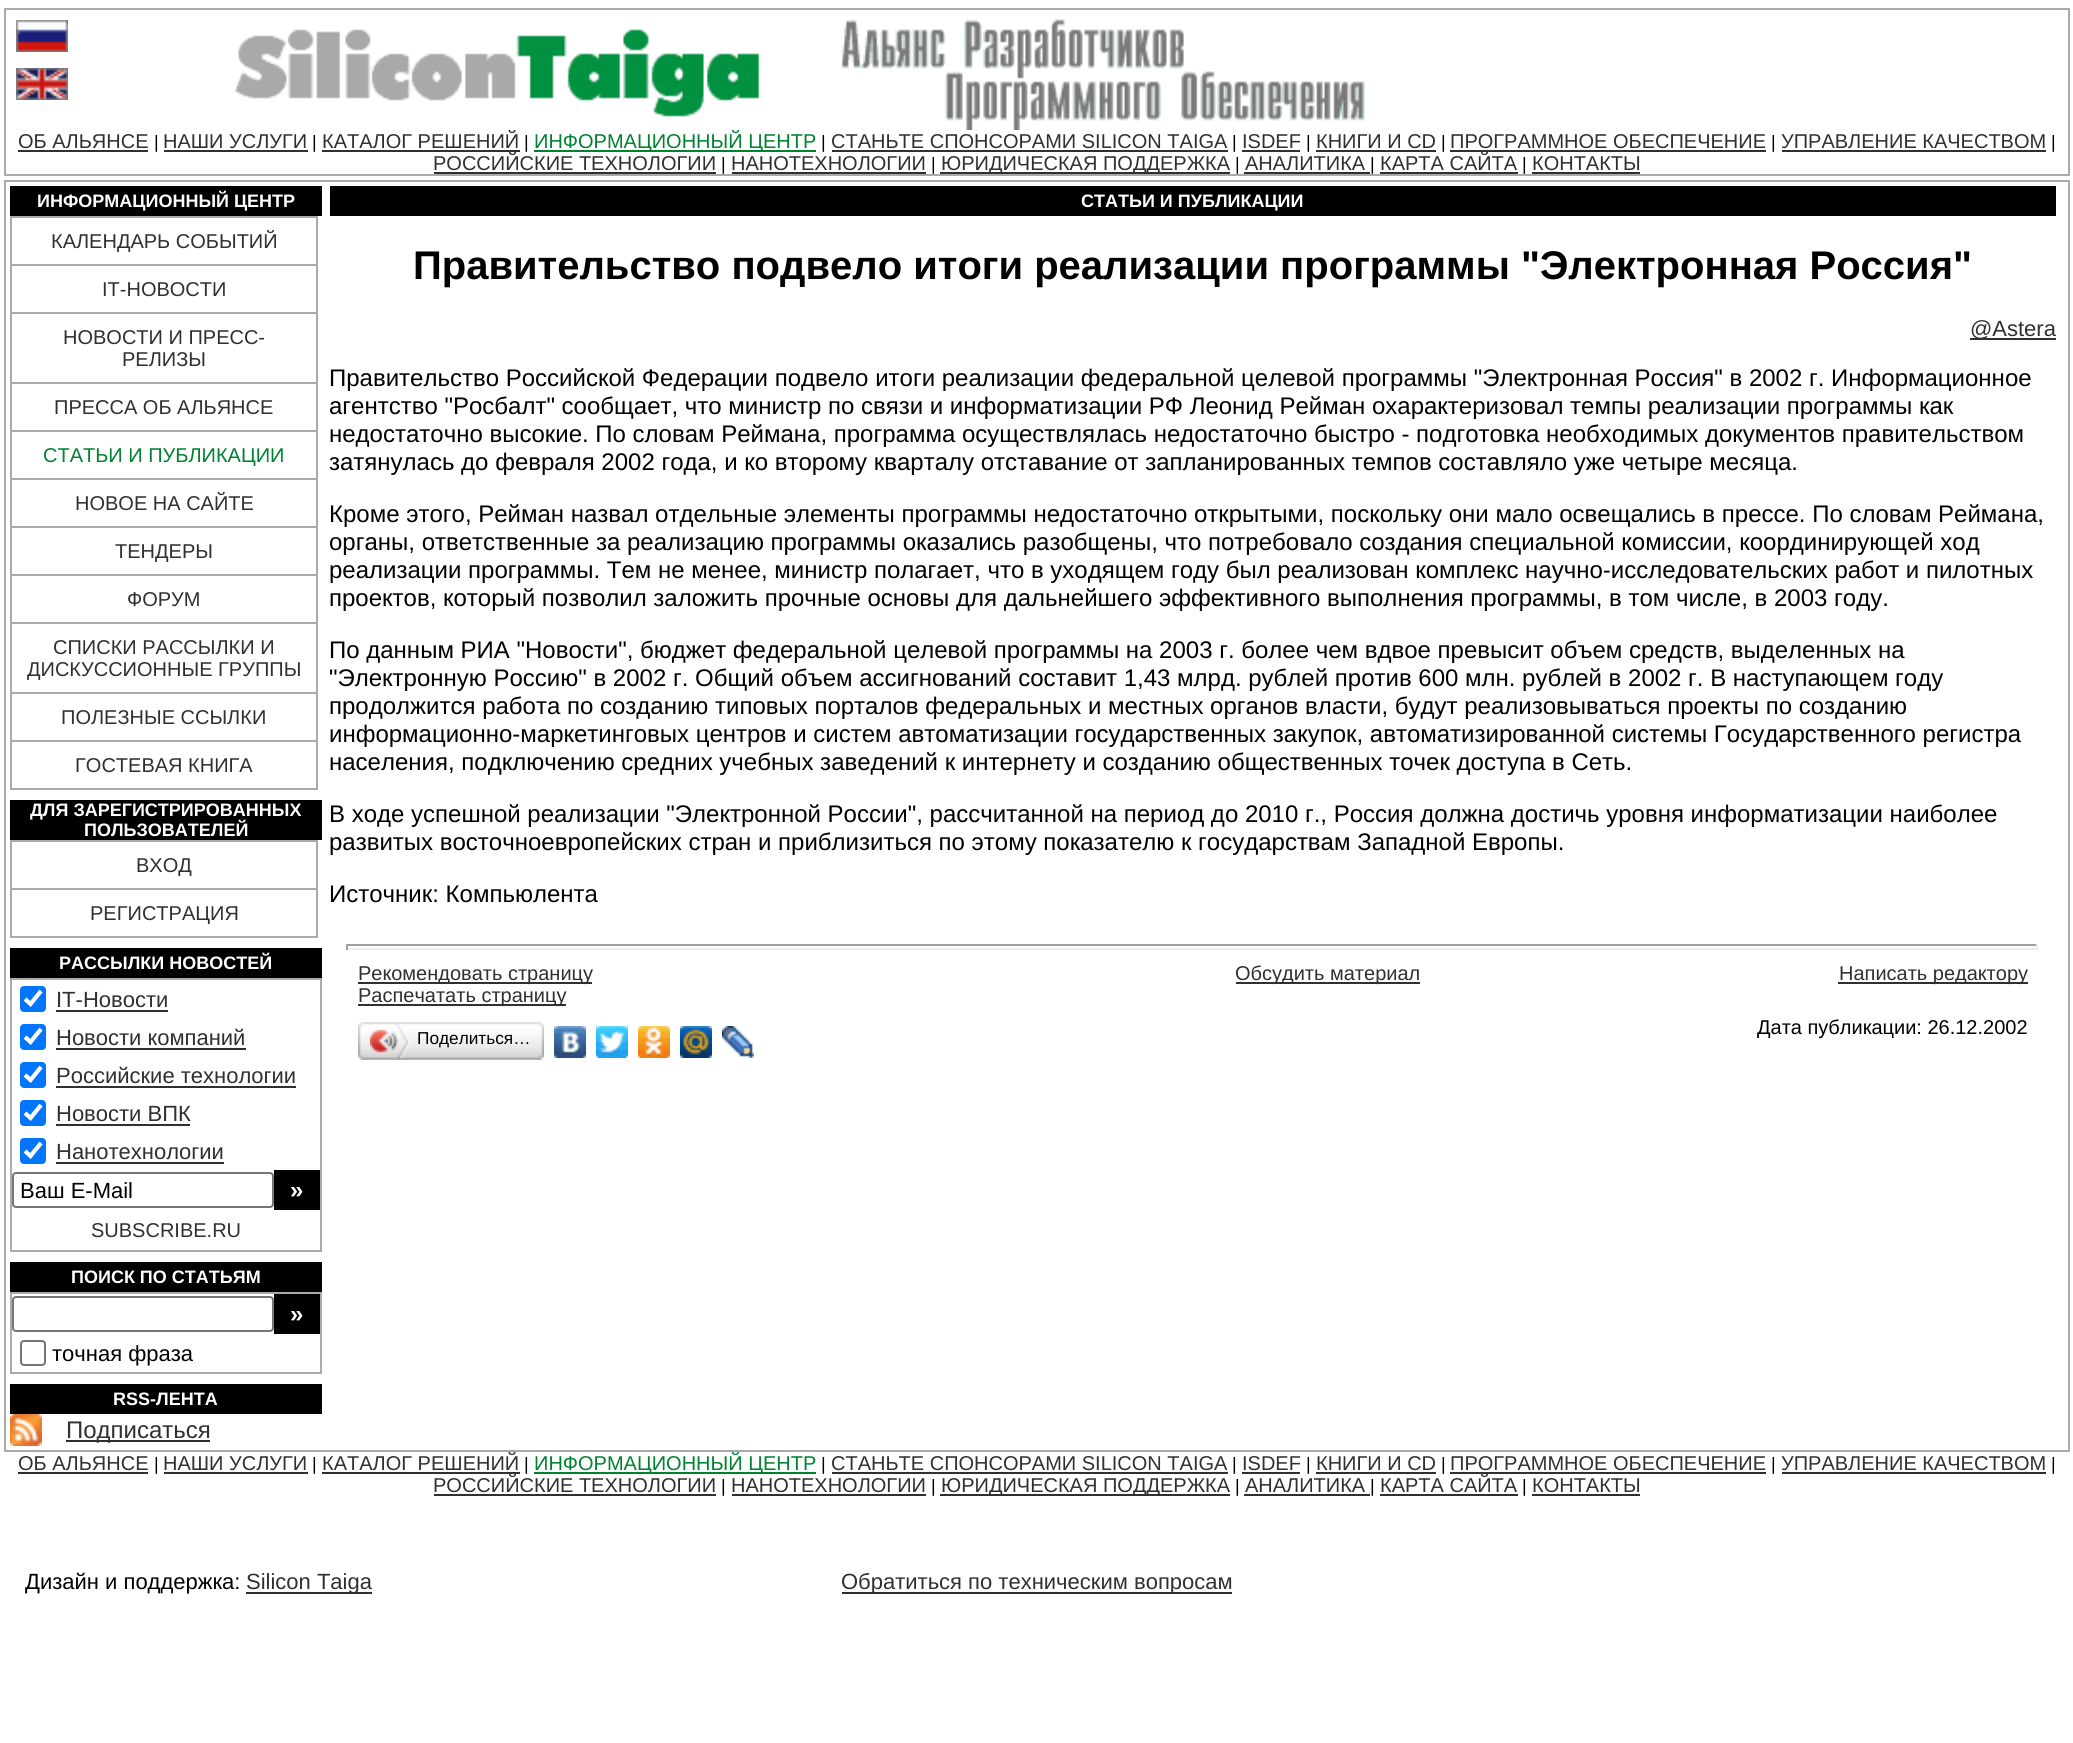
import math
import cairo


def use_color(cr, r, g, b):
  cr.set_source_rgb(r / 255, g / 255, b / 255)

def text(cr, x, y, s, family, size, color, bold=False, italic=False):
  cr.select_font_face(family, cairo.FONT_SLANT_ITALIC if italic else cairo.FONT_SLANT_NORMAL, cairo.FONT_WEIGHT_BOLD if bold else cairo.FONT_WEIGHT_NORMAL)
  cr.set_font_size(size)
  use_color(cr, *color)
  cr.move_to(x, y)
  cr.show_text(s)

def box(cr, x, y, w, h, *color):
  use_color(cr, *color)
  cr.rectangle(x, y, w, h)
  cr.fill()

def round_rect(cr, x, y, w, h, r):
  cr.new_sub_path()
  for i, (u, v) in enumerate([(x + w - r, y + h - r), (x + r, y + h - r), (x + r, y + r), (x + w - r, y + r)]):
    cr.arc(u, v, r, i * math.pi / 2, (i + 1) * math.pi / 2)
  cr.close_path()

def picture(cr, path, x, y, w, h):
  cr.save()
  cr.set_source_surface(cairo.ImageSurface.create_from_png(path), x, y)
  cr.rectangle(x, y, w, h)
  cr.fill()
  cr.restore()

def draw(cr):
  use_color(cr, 255, 255, 255)
  cr.paint()
  cr.rectangle(5, 9, 2064, 166)
  use_color(cr, 170, 170, 170)
  cr.stroke()
  picture(cr, "img_01.png", 16, 20, 52, 32)
  picture(cr, "img_02.png", 16, 68, 52, 32)
  picture(cr, "img_03.png", 234, 19, 1131, 111)
  box(cr, 18, 150, 130, 2, 48, 48, 48)
  box(cr, 164, 150, 144, 2, 48, 48, 48)
  box(cr, 322, 150, 198, 2, 48, 48, 48)
  box(cr, 534, 150, 282, 2, 0, 130, 48)
  box(cr, 832, 150, 396, 2, 48, 48, 48)
  box(cr, 1242, 150, 58, 2, 48, 48, 48)
  box(cr, 1316, 150, 120, 2, 48, 48, 48)
  box(cr, 1450, 150, 316, 2, 48, 48, 48)
  box(cr, 1782, 150, 264, 2, 48, 48, 48)
  box(cr, 434, 172, 282, 2, 48, 48, 48)
  box(cr, 732, 172, 194, 2, 48, 48, 48)
  box(cr, 940, 172, 290, 2, 48, 48, 48)
  box(cr, 1244, 172, 126, 2, 48, 48, 48)
  box(cr, 1380, 172, 138, 2, 48, 48, 48)
  box(cr, 1532, 172, 108, 2, 48, 48, 48)
  cr.rectangle(5, 181, 2064, 1270)
  use_color(cr, 170, 170, 170)
  cr.stroke()
  box(cr, 10, 186, 312, 30, 0, 0, 0)
  box(cr, 10, 216, 308, 2, 170, 170, 170)
  box(cr, 316, 216, 2, 574, 170, 170, 170)
  box(cr, 10, 788, 308, 2, 170, 170, 170)
  box(cr, 10, 216, 2, 574, 170, 170, 170)
  box(cr, 10, 264, 308, 2, 170, 170, 170)
  box(cr, 10, 312, 308, 2, 170, 170, 170)
  box(cr, 10, 382, 308, 2, 170, 170, 170)
  box(cr, 10, 430, 308, 2, 170, 170, 170)
  box(cr, 10, 478, 308, 2, 170, 170, 170)
  box(cr, 10, 526, 308, 2, 170, 170, 170)
  box(cr, 10, 574, 308, 2, 170, 170, 170)
  box(cr, 10, 622, 308, 2, 170, 170, 170)
  box(cr, 10, 692, 308, 2, 170, 170, 170)
  box(cr, 10, 740, 308, 2, 170, 170, 170)
  box(cr, 10, 800, 312, 40, 0, 0, 0)
  box(cr, 10, 840, 308, 2, 170, 170, 170)
  box(cr, 316, 840, 2, 98, 170, 170, 170)
  box(cr, 10, 936, 308, 2, 170, 170, 170)
  box(cr, 10, 840, 2, 98, 170, 170, 170)
  box(cr, 10, 888, 308, 2, 170, 170, 170)
  box(cr, 10, 948, 312, 30, 0, 0, 0)
  cr.rectangle(11, 979, 310, 272)
  use_color(cr, 170, 170, 170)
  cr.stroke()
  use_color(cr, 0, 117, 255)
  round_rect(cr, 20, 986, 26, 26, 4)
  cr.fill()
  cr.new_path()
  cr.move_to(25, 999)
  cr.line_to(30.5, 1004)
  cr.line_to(41, 991)
  use_color(cr, 255, 255, 255)
  cr.set_line_width(4.2)
  cr.stroke()
  box(cr, 56, 1010, 112, 2, 48, 48, 48)
  use_color(cr, 0, 117, 255)
  round_rect(cr, 20, 1024, 26, 26, 4)
  cr.fill()
  cr.new_path()
  cr.move_to(25, 1037)
  cr.line_to(30.5, 1042)
  cr.line_to(41, 1029)
  use_color(cr, 255, 255, 255)
  cr.stroke()
  box(cr, 56, 1048, 190, 2, 48, 48, 48)
  use_color(cr, 0, 117, 255)
  round_rect(cr, 20, 1062, 26, 26, 4)
  cr.fill()
  cr.new_path()
  cr.move_to(25, 1075)
  cr.line_to(30.5, 1080)
  cr.line_to(41, 1067)
  use_color(cr, 255, 255, 255)
  cr.stroke()
  box(cr, 56, 1086, 240, 2, 48, 48, 48)
  use_color(cr, 0, 117, 255)
  round_rect(cr, 20, 1100, 26, 26, 4)
  cr.fill()
  cr.new_path()
  cr.move_to(25, 1113)
  cr.line_to(30.5, 1118)
  cr.line_to(41, 1105)
  use_color(cr, 255, 255, 255)
  cr.stroke()
  box(cr, 56, 1124, 134, 2, 48, 48, 48)
  use_color(cr, 0, 117, 255)
  round_rect(cr, 20, 1138, 26, 26, 4)
  cr.fill()
  cr.new_path()
  cr.move_to(25, 1151)
  cr.line_to(30.5, 1156)
  cr.line_to(41, 1143)
  use_color(cr, 255, 255, 255)
  cr.stroke()
  box(cr, 56, 1162, 168, 2, 48, 48, 48)
  round_rect(cr, 13, 1173, 260, 34, 3)
  use_color(cr, 118, 118, 118)
  cr.set_line_width(2)
  cr.stroke()
  box(cr, 274, 1170, 46, 40, 0, 0, 0)
  box(cr, 10, 1262, 312, 30, 0, 0, 0)
  cr.rectangle(11, 1293, 310, 80)
  use_color(cr, 170, 170, 170)
  cr.stroke()
  round_rect(cr, 13, 1297, 260, 34, 3)
  use_color(cr, 118, 118, 118)
  cr.stroke()
  box(cr, 274, 1294, 46, 40, 0, 0, 0)
  round_rect(cr, 21, 1341, 24, 24, 3)
  use_color(cr, 118, 118, 118)
  cr.stroke()
  box(cr, 10, 1384, 312, 30, 0, 0, 0)
  picture(cr, "img_04.png", 10, 1414, 32, 32)
  box(cr, 66, 1440, 144, 2, 48, 48, 48)
  box(cr, 330, 186, 1726, 30, 0, 0, 0)
  box(cr, 1970, 338, 86, 2, 48, 48, 48)
  box(cr, 346, 944, 1692, 2, 159, 159, 159)
  box(cr, 2036, 944, 2, 6, 238, 238, 238)
  box(cr, 346, 948, 1692, 2, 238, 238, 238)
  box(cr, 346, 944, 2, 6, 159, 159, 159)
  box(cr, 358, 982, 234, 2, 48, 48, 48)
  box(cr, 1236, 982, 184, 2, 48, 48, 48)
  box(cr, 1838, 982, 190, 2, 48, 48, 48)
  box(cr, 358, 1004, 208, 2, 48, 48, 48)
  picture(cr, "img_05.png", 364, 1022, 174, 38)
  picture(cr, "img_06.png", 358, 1022, 6, 38)
  picture(cr, "img_07.png", 370, 1024, 40, 34)
  picture(cr, "img_08.png", 538, 1022, 6, 38)
  picture(cr, "img_09.png", 554, 1026, 32, 32)
  picture(cr, "img_10.png", 596, 1026, 32, 32)
  picture(cr, "img_11.png", 638, 1026, 32, 32)
  picture(cr, "img_12.png", 680, 1026, 32, 32)
  picture(cr, "img_13.png", 722, 1026, 32, 32)
  box(cr, 18, 1472, 130, 2, 48, 48, 48)
  box(cr, 164, 1472, 144, 2, 48, 48, 48)
  box(cr, 322, 1472, 198, 2, 48, 48, 48)
  box(cr, 534, 1472, 282, 2, 0, 130, 48)
  box(cr, 832, 1472, 396, 2, 48, 48, 48)
  box(cr, 1242, 1472, 58, 2, 48, 48, 48)
  box(cr, 1316, 1472, 120, 2, 48, 48, 48)
  box(cr, 1450, 1472, 316, 2, 48, 48, 48)
  box(cr, 1782, 1472, 264, 2, 48, 48, 48)
  box(cr, 434, 1494, 282, 2, 48, 48, 48)
  box(cr, 732, 1494, 194, 2, 48, 48, 48)
  box(cr, 940, 1494, 290, 2, 48, 48, 48)
  box(cr, 1244, 1494, 126, 2, 48, 48, 48)
  box(cr, 1380, 1494, 138, 2, 48, 48, 48)
  box(cr, 1532, 1494, 108, 2, 48, 48, 48)
  box(cr, 246, 1592, 126, 2, 48, 48, 48)
  box(cr, 842, 1592, 390, 2, 48, 48, 48)
  text(cr, 18, 148, "ОБ АЛЬЯНСЕ", "Liberation Sans", 20, (48, 48, 48))
  text(cr, 154, 148, "|", "Liberation Sans", 18, (0, 0, 0))
  text(cr, 163, 148, "НАШИ УСЛУГИ", "Liberation Sans", 20, (48, 48, 48))
  text(cr, 312, 148, "|", "Liberation Sans", 18, (0, 0, 0))
  text(cr, 322, 148, "КАТАЛОГ РЕШЕНИЙ", "Liberation Sans", 20, (48, 48, 48))
  text(cr, 524, 148, "|", "Liberation Sans", 18, (0, 0, 0))
  text(cr, 534, 148, "ИНФОРМАЦИОННЫЙ ЦЕНТР", "Liberation Sans", 20, (0, 130, 48))
  text(cr, 821, 148, "|", "Liberation Sans", 18, (0, 0, 0))
  text(cr, 831, 148, "СТАНЬТЕ СПОНСОРАМИ SILICON TAIGA", "Liberation Sans", 20, (48, 48, 48))
  text(cr, 1232, 148, "|", "Liberation Sans", 18, (0, 0, 0))
  text(cr, 1242, 148, "ISDEF", "Liberation Sans", 20, (48, 48, 48))
  text(cr, 1306, 148, "|", "Liberation Sans", 18, (0, 0, 0))
  text(cr, 1316, 148, "КНИГИ И CD", "Liberation Sans", 20, (48, 48, 48))
  text(cr, 1441, 148, "|", "Liberation Sans", 18, (0, 0, 0))
  text(cr, 1450, 148, "ПРОГРАММНОЕ ОБЕСПЕЧЕНИЕ", "Liberation Sans", 20, (48, 48, 48))
  text(cr, 1771, 148, "|", "Liberation Sans", 18, (0, 0, 0))
  text(cr, 1781, 148, "УПРАВЛЕНИЕ КАЧЕСТВОМ", "Liberation Sans", 20, (48, 48, 48))
  text(cr, 2051, 148, "|", "Liberation Sans", 18, (0, 0, 0))
  text(cr, 433, 170, "РОССИЙСКИЕ ТЕХНОЛОГИИ", "Liberation Sans", 20, (48, 48, 48))
  text(cr, 721, 170, "|", "Liberation Sans", 18, (0, 0, 0))
  text(cr, 731, 170, "НАНОТЕХНОЛОГИИ", "Liberation Sans", 20, (48, 48, 48))
  text(cr, 931, 170, "|", "Liberation Sans", 18, (0, 0, 0))
  text(cr, 941, 170, "ЮРИДИЧЕСКАЯ ПОДДЕРЖКА", "Liberation Sans", 20, (48, 48, 48))
  text(cr, 1235, 170, "|", "Liberation Sans", 18, (0, 0, 0))
  text(cr, 1245, 170, "АНАЛИТИКА", "Liberation Sans", 20, (48, 48, 48))
  text(cr, 1370, 170, "|", "Liberation Sans", 18, (0, 0, 0))
  text(cr, 1380, 170, "КАРТА САЙТА", "Liberation Sans", 20, (48, 48, 48))
  text(cr, 1522, 170, "|", "Liberation Sans", 18, (0, 0, 0))
  text(cr, 1532, 170, "КОНТАКТЫ", "Liberation Sans", 20, (48, 48, 48))
  text(cr, 37, 207, "ИНФОРМАЦИОННЫЙ ЦЕНТР", "Liberation Sans", 18, (255, 255, 255), bold=True)
  text(cr, 51, 248, "КАЛЕНДАРЬ СОБЫТИЙ", "Liberation Sans", 20, (48, 48, 48))
  text(cr, 102, 296, "IT-НОВОСТИ", "Liberation Sans", 20, (48, 48, 48))
  text(cr, 63, 344, "НОВОСТИ И ПРЕСС-", "Liberation Sans", 20, (48, 48, 48))
  text(cr, 122, 366, "РЕЛИЗЫ", "Liberation Sans", 20, (48, 48, 48))
  text(cr, 54, 414, "ПРЕССА ОБ АЛЬЯНСЕ", "Liberation Sans", 20, (48, 48, 48))
  text(cr, 43, 462, "СТАТЬИ И ПУБЛИКАЦИИ", "Liberation Sans", 20, (0, 130, 48))
  text(cr, 75, 510, "НОВОЕ НА САЙТЕ", "Liberation Sans", 20, (48, 48, 48))
  text(cr, 115, 558, "ТЕНДЕРЫ", "Liberation Sans", 20, (48, 48, 48))
  text(cr, 127, 606, "ФОРУМ", "Liberation Sans", 20, (48, 48, 48))
  text(cr, 53, 654, "СПИСКИ РАССЫЛКИ И", "Liberation Sans", 20, (48, 48, 48))
  text(cr, 27, 676, "ДИСКУССИОННЫЕ ГРУППЫ", "Liberation Sans", 20, (48, 48, 48))
  text(cr, 61, 724, "ПОЛЕЗНЫЕ ССЫЛКИ", "Liberation Sans", 20, (48, 48, 48))
  text(cr, 75, 772, "ГОСТЕВАЯ КНИГА", "Liberation Sans", 20, (48, 48, 48))
  text(cr, 30, 816, "ДЛЯ ЗАРЕГИСТРИРОВАННЫХ", "Liberation Sans", 18, (255, 255, 255), bold=True)
  text(cr, 84, 836, "ПОЛЬЗОВАТЕЛЕЙ", "Liberation Sans", 18, (255, 255, 255), bold=True)
  text(cr, 136, 872, "ВХОД", "Liberation Sans", 20, (48, 48, 48))
  text(cr, 90, 920, "РЕГИСТРАЦИЯ", "Liberation Sans", 20, (48, 48, 48))
  text(cr, 59, 969, "РАССЫЛКИ НОВОСТЕЙ", "Liberation Sans", 18, (255, 255, 255), bold=True)
  text(cr, 56, 1007, "IT-Новости", "Liberation Sans", 22, (48, 48, 48))
  text(cr, 56, 1045, "Новости компаний", "Liberation Sans", 22, (48, 48, 48))
  text(cr, 56, 1083, "Российские технологии", "Liberation Sans", 22, (48, 48, 48))
  text(cr, 56, 1121, "Новости ВПК", "Liberation Sans", 22, (48, 48, 48))
  text(cr, 56, 1159, "Нанотехнологии", "Liberation Sans", 22, (48, 48, 48))
  text(cr, 20, 1198, "Ваш E-Mail", "Liberation Sans", 22, (0, 0, 0))
  text(cr, 290, 1198, "»", "Liberation Sans", 24, (255, 255, 255), bold=True)
  text(cr, 91, 1237, "SUBSCRIBE.RU", "Liberation Sans", 20, (48, 48, 48))
  text(cr, 71, 1283, "ПОИСК ПО СТАТЬЯМ", "Liberation Sans", 18, (255, 255, 255), bold=True)
  text(cr, 290, 1322, "»", "Liberation Sans", 24, (255, 255, 255), bold=True)
  text(cr, 52, 1361, "точная фраза", "Liberation Sans", 22, (0, 0, 0))
  text(cr, 113, 1405, "RSS-ЛЕНТА", "Liberation Sans", 18, (255, 255, 255), bold=True)
  text(cr, 66, 1438, "Подписаться", "Liberation Sans", 24, (48, 48, 48))
  text(cr, 1081, 207, "СТАТЬИ И ПУБЛИКАЦИИ", "Liberation Sans", 18, (255, 255, 255), bold=True)
  text(cr, 413, 279, "Правительство подвело итоги реализации программы \"Электронная Россия\"", "Liberation Sans", 40, (0, 0, 0), bold=True)
  text(cr, 1970, 336, "@Astera", "Liberation Sans", 22, (48, 48, 48))
  text(cr, 329, 386, "Правительство Российской Федерации подвело итоги реализации федеральной целевой программы \"Электронная Россия\" в 2002 г. Информационное", "Liberation Sans", 24, (0, 0, 0))
  text(cr, 329, 414, "агентство \"Росбалт\" сообщает, что министр по связи и информатизации РФ Леонид Рейман охарактеризовал темпы реализации программы как", "Liberation Sans", 24, (0, 0, 0))
  text(cr, 329, 442, "недостаточно высокие. По словам Реймана, программа осуществлялась недостаточно быстро - подготовка необходимых документов правительством", "Liberation Sans", 24, (0, 0, 0))
  text(cr, 329, 470, "затянулась до февраля 2002 года, и ко второму кварталу отставание от запланированных темпов составляло уже четыре месяца.", "Liberation Sans", 24, (0, 0, 0))
  text(cr, 329, 522, "Кроме этого, Рейман назвал отдельные элементы программы недостаточно открытыми, поскольку они мало освещались в прессе. По словам Реймана,", "Liberation Sans", 24, (0, 0, 0))
  text(cr, 329, 550, "органы, ответственные за реализацию программы оказались разобщены, что потребовало создания специальной комиссии, координирующей ход", "Liberation Sans", 24, (0, 0, 0))
  text(cr, 329, 578, "реализации программы. Тем не менее, министр полагает, что в уходящем году был реализован комплекс научно-исследовательских работ и пилотных", "Liberation Sans", 24, (0, 0, 0))
  text(cr, 329, 606, "проектов, который позволил заложить прочные основы для дальнейшего эффективного выполнения программы, в том числе, в 2003 году.", "Liberation Sans", 24, (0, 0, 0))
  text(cr, 329, 658, "По данным РИА \"Новости\", бюджет федеральной целевой программы на 2003 г. более чем вдвое превысит объем средств, выделенных на", "Liberation Sans", 24, (0, 0, 0))
  text(cr, 329, 686, "\"Электронную Россию\" в 2002 г. Общий объем ассигнований составит 1,43 млрд. рублей против 600 млн. рублей в 2002 г. В наступающем году", "Liberation Sans", 24, (0, 0, 0))
  text(cr, 329, 714, "продолжится работа по созданию типовых порталов федеральных и местных органов власти, будут реализовываться проекты по созданию", "Liberation Sans", 24, (0, 0, 0))
  text(cr, 329, 742, "информационно-маркетинговых центров и систем автоматизации государственных закупок, автоматизированной системы Государственного регистра", "Liberation Sans", 24, (0, 0, 0))
  text(cr, 329, 770, "населения, подключению средних учебных заведений к интернету и созданию общественных точек доступа в Сеть.", "Liberation Sans", 24, (0, 0, 0))
  text(cr, 329, 822, "В ходе успешной реализации \"Электронной России\", рассчитанной на период до 2010 г., Россия должна достичь уровня информатизации наиболее", "Liberation Sans", 24, (0, 0, 0))
  text(cr, 329, 850, "развитых восточноевропейских стран и приблизиться по этому показателю к государствам Западной Европы.", "Liberation Sans", 24, (0, 0, 0))
  text(cr, 329, 902, "Источник: Компьюлента", "Liberation Sans", 24, (0, 0, 0))
  text(cr, 358, 980, "Рекомендовать страницу", "Liberation Sans", 20, (48, 48, 48))
  text(cr, 1235, 980, "Обсудить материал", "Liberation Sans", 20, (48, 48, 48))
  text(cr, 1839, 980, "Написать редактору", "Liberation Sans", 20, (48, 48, 48))
  text(cr, 358, 1002, "Распечатать страницу", "Liberation Sans", 20, (48, 48, 48))
  text(cr, 417, 1044, "Поделиться…", "Liberation Sans", 17.25, (0, 0, 0))
  text(cr, 1757, 1034, "Дата публикации: 26.12.2002", "Liberation Sans", 20, (0, 0, 0))
  text(cr, 18, 1470, "ОБ АЛЬЯНСЕ", "Liberation Sans", 20, (48, 48, 48))
  text(cr, 154, 1470, "|", "Liberation Sans", 18, (0, 0, 0))
  text(cr, 163, 1470, "НАШИ УСЛУГИ", "Liberation Sans", 20, (48, 48, 48))
  text(cr, 312, 1470, "|", "Liberation Sans", 18, (0, 0, 0))
  text(cr, 322, 1470, "КАТАЛОГ РЕШЕНИЙ", "Liberation Sans", 20, (48, 48, 48))
  text(cr, 524, 1470, "|", "Liberation Sans", 18, (0, 0, 0))
  text(cr, 534, 1470, "ИНФОРМАЦИОННЫЙ ЦЕНТР", "Liberation Sans", 20, (0, 130, 48))
  text(cr, 821, 1470, "|", "Liberation Sans", 18, (0, 0, 0))
  text(cr, 831, 1470, "СТАНЬТЕ СПОНСОРАМИ SILICON TAIGA", "Liberation Sans", 20, (48, 48, 48))
  text(cr, 1232, 1470, "|", "Liberation Sans", 18, (0, 0, 0))
  text(cr, 1242, 1470, "ISDEF", "Liberation Sans", 20, (48, 48, 48))
  text(cr, 1306, 1470, "|", "Liberation Sans", 18, (0, 0, 0))
  text(cr, 1316, 1470, "КНИГИ И CD", "Liberation Sans", 20, (48, 48, 48))
  text(cr, 1441, 1470, "|", "Liberation Sans", 18, (0, 0, 0))
  text(cr, 1450, 1470, "ПРОГРАММНОЕ ОБЕСПЕЧЕНИЕ", "Liberation Sans", 20, (48, 48, 48))
  text(cr, 1771, 1470, "|", "Liberation Sans", 18, (0, 0, 0))
  text(cr, 1781, 1470, "УПРАВЛЕНИЕ КАЧЕСТВОМ", "Liberation Sans", 20, (48, 48, 48))
  text(cr, 2051, 1470, "|", "Liberation Sans", 18, (0, 0, 0))
  text(cr, 433, 1492, "РОССИЙСКИЕ ТЕХНОЛОГИИ", "Liberation Sans", 20, (48, 48, 48))
  text(cr, 721, 1492, "|", "Liberation Sans", 18, (0, 0, 0))
  text(cr, 731, 1492, "НАНОТЕХНОЛОГИИ", "Liberation Sans", 20, (48, 48, 48))
  text(cr, 931, 1492, "|", "Liberation Sans", 18, (0, 0, 0))
  text(cr, 941, 1492, "ЮРИДИЧЕСКАЯ ПОДДЕРЖКА", "Liberation Sans", 20, (48, 48, 48))
  text(cr, 1235, 1492, "|", "Liberation Sans", 18, (0, 0, 0))
  text(cr, 1245, 1492, "АНАЛИТИКА", "Liberation Sans", 20, (48, 48, 48))
  text(cr, 1370, 1492, "|", "Liberation Sans", 18, (0, 0, 0))
  text(cr, 1380, 1492, "КАРТА САЙТА", "Liberation Sans", 20, (48, 48, 48))
  text(cr, 1522, 1492, "|", "Liberation Sans", 18, (0, 0, 0))
  text(cr, 1532, 1492, "КОНТАКТЫ", "Liberation Sans", 20, (48, 48, 48))
  text(cr, 25, 1589, "Дизайн и поддержка:", "Liberation Sans", 22, (0, 0, 0))
  text(cr, 246, 1589, "Silicon Taiga", "Liberation Sans", 22, (48, 48, 48))
  text(cr, 841, 1589, "Обратиться по техническим вопросам", "Liberation Sans", 22, (48, 48, 48))


surface = cairo.ImageSurface(cairo.FORMAT_RGB24, 2073, 1743)
cr = cairo.Context(surface)
options = cairo.FontOptions()
options.set_hint_metrics(cairo.HINT_METRICS_OFF)
options.set_hint_style(cairo.HINT_STYLE_NONE)
cr.set_font_options(options)
cr.set_miter_limit(4)
draw(cr)
surface.write_to_png("out.png")
